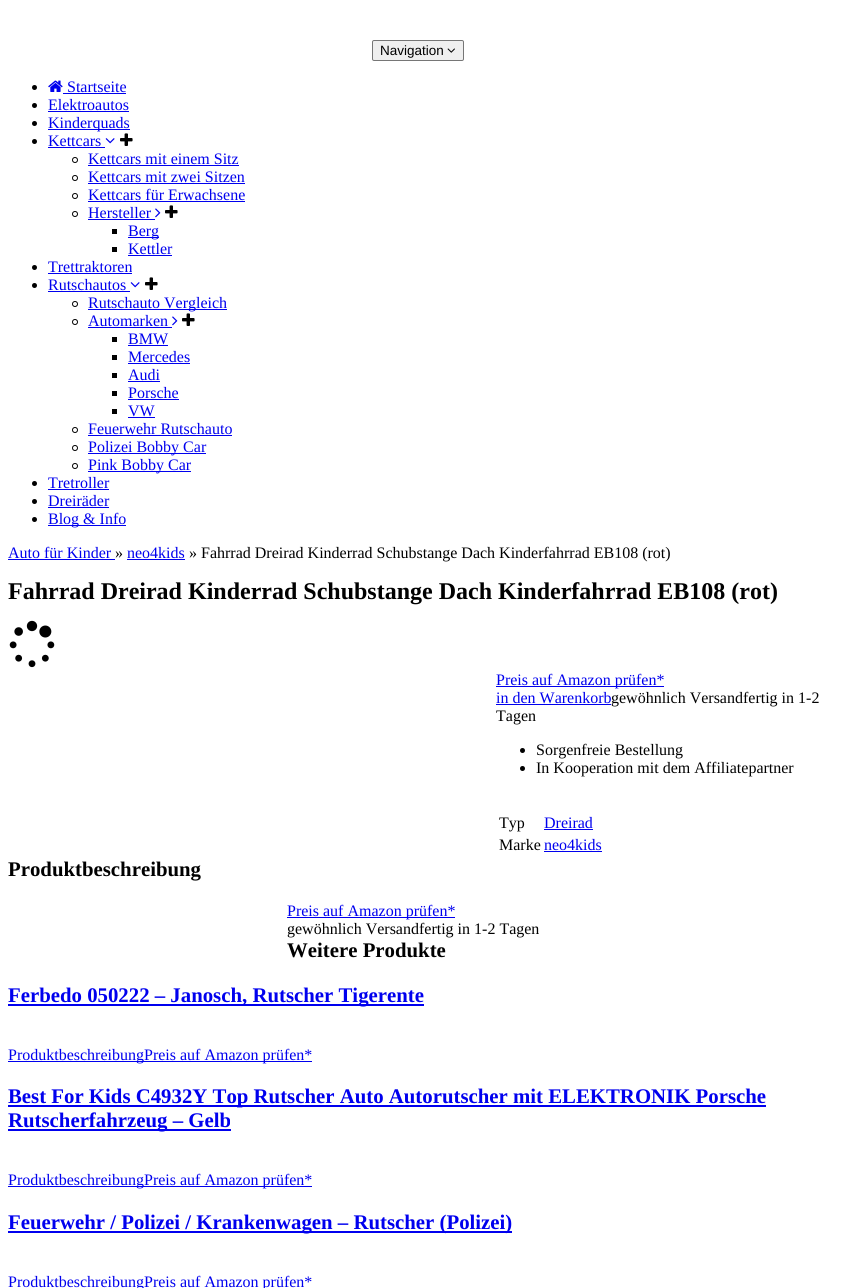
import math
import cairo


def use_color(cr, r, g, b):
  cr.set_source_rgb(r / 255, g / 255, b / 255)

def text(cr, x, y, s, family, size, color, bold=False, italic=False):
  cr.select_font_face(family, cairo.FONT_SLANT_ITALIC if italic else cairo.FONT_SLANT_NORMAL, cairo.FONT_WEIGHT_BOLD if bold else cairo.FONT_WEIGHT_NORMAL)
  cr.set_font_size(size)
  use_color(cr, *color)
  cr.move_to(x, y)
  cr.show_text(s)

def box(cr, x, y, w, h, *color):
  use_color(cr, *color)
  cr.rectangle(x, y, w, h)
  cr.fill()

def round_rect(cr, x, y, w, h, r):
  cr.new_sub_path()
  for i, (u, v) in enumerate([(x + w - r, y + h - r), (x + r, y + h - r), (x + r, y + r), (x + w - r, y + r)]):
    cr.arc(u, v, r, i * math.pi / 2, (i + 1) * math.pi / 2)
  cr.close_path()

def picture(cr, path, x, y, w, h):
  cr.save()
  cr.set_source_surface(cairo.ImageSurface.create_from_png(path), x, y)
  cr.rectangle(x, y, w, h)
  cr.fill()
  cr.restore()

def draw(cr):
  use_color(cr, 255, 255, 255)
  cr.paint()
  use_color(cr, 239, 239, 239)
  round_rect(cr, 372.5, 40.5, 91, 20, 1.5)
  cr.fill_preserve()
  use_color(cr, 118, 118, 118)
  cr.set_line_width(1)
  cr.stroke()
  picture(cr, "img_01.png", 447, 48, 8, 5)
  use_color(cr, 0, 0, 0)
  cr.arc(34.5, 87.5, 2.5, 0, 2 * math.pi)
  cr.fill()
  picture(cr, "img_02.png", 48, 80, 15, 12)
  box(cr, 63, 93, 63, 1, 0, 0, 238)
  use_color(cr, 0, 0, 0)
  cr.arc(34.5, 105.5, 2.5, 0, 2 * math.pi)
  cr.fill()
  box(cr, 48, 111, 81, 1, 0, 0, 238)
  use_color(cr, 0, 0, 0)
  cr.arc(34.5, 123.5, 2.5, 0, 2 * math.pi)
  cr.fill()
  box(cr, 48, 129, 82, 1, 0, 0, 238)
  use_color(cr, 0, 0, 0)
  cr.arc(34.5, 141.5, 2.5, 0, 2 * math.pi)
  cr.fill()
  box(cr, 48, 147, 57, 1, 0, 0, 238)
  picture(cr, "img_03.png", 105, 138, 10, 6)
  picture(cr, "img_04.png", 120, 133, 13, 13)
  cr.arc(75, 160, 2.5, 0, 2 * math.pi)
  use_color(cr, 0, 0, 0)
  cr.stroke()
  box(cr, 88, 165, 151, 1, 0, 0, 238)
  cr.arc(75, 178, 2.5, 0, 2 * math.pi)
  use_color(cr, 0, 0, 0)
  cr.stroke()
  box(cr, 88, 183, 157, 1, 0, 0, 238)
  cr.arc(75, 196, 2.5, 0, 2 * math.pi)
  use_color(cr, 0, 0, 0)
  cr.stroke()
  box(cr, 88, 201, 157, 1, 0, 0, 238)
  cr.arc(75, 214, 2.5, 0, 2 * math.pi)
  use_color(cr, 0, 0, 0)
  cr.stroke()
  box(cr, 88, 219, 67, 1, 0, 0, 238)
  picture(cr, "img_05.png", 155, 208, 6, 10)
  picture(cr, "img_04.png", 165, 205, 13, 13)
  box(cr, 112, 229, 5, 5, 0, 0, 0)
  box(cr, 128, 237, 31, 1, 0, 0, 238)
  box(cr, 112, 247, 5, 5, 0, 0, 0)
  box(cr, 128, 255, 44, 1, 0, 0, 238)
  use_color(cr, 0, 0, 0)
  cr.arc(34.5, 267.5, 2.5, 0, 2 * math.pi)
  cr.fill()
  box(cr, 48, 273, 84, 1, 0, 0, 238)
  use_color(cr, 0, 0, 0)
  cr.arc(34.5, 285.5, 2.5, 0, 2 * math.pi)
  cr.fill()
  box(cr, 48, 291, 82, 1, 0, 0, 238)
  picture(cr, "img_03.png", 130, 282, 10, 6)
  picture(cr, "img_04.png", 145, 277, 13, 13)
  cr.arc(75, 304, 2.5, 0, 2 * math.pi)
  use_color(cr, 0, 0, 0)
  cr.stroke()
  box(cr, 88, 309, 139, 1, 0, 0, 238)
  cr.arc(75, 322, 2.5, 0, 2 * math.pi)
  use_color(cr, 0, 0, 0)
  cr.stroke()
  box(cr, 88, 327, 84, 1, 0, 0, 238)
  picture(cr, "img_05.png", 172, 316, 6, 10)
  picture(cr, "img_04.png", 182, 313, 13, 13)
  box(cr, 112, 337, 5, 5, 0, 0, 0)
  box(cr, 128, 345, 40, 1, 0, 0, 238)
  box(cr, 112, 355, 5, 5, 0, 0, 0)
  box(cr, 128, 363, 62, 1, 0, 0, 238)
  box(cr, 112, 373, 5, 5, 0, 0, 0)
  box(cr, 128, 381, 32, 1, 0, 0, 238)
  box(cr, 112, 391, 5, 5, 0, 0, 0)
  box(cr, 128, 399, 51, 1, 0, 0, 238)
  box(cr, 112, 409, 5, 5, 0, 0, 0)
  box(cr, 128, 417, 27, 1, 0, 0, 238)
  cr.arc(75, 430, 2.5, 0, 2 * math.pi)
  use_color(cr, 0, 0, 0)
  cr.stroke()
  box(cr, 88, 435, 144, 1, 0, 0, 238)
  cr.arc(75, 448, 2.5, 0, 2 * math.pi)
  use_color(cr, 0, 0, 0)
  cr.stroke()
  box(cr, 88, 453, 118, 1, 0, 0, 238)
  cr.arc(75, 466, 2.5, 0, 2 * math.pi)
  use_color(cr, 0, 0, 0)
  cr.stroke()
  box(cr, 88, 471, 103, 1, 0, 0, 238)
  use_color(cr, 0, 0, 0)
  cr.arc(34.5, 483.5, 2.5, 0, 2 * math.pi)
  cr.fill()
  box(cr, 48, 489, 61, 1, 0, 0, 238)
  use_color(cr, 0, 0, 0)
  cr.arc(34.5, 501.5, 2.5, 0, 2 * math.pi)
  cr.fill()
  box(cr, 48, 507, 61, 1, 0, 0, 238)
  use_color(cr, 0, 0, 0)
  cr.arc(34.5, 519.5, 2.5, 0, 2 * math.pi)
  cr.fill()
  box(cr, 48, 525, 78, 1, 0, 0, 238)
  box(cr, 8, 559, 107, 1, 0, 0, 238)
  box(cr, 127, 559, 58, 1, 0, 0, 238)
  picture(cr, "img_06.png", 9, 620, 46, 48)
  box(cr, 496, 686, 168, 1, 0, 0, 238)
  box(cr, 496, 704, 115, 1, 0, 0, 238)
  use_color(cr, 0, 0, 0)
  cr.arc(522.5, 750.5, 2.5, 0, 2 * math.pi)
  cr.fill()
  cr.arc(522.5, 768.5, 2.5, 0, 2 * math.pi)
  cr.fill()
  box(cr, 544, 829, 49, 1, 0, 0, 238)
  box(cr, 544, 851, 58, 1, 0, 0, 238)
  box(cr, 287, 917, 168, 1, 0, 0, 238)
  box(cr, 8, 1004, 416, 2, 0, 0, 238)
  box(cr, 8, 1061, 304, 1, 0, 0, 238)
  box(cr, 8, 1105, 758, 2, 0, 0, 238)
  box(cr, 8, 1129, 223, 2, 0, 0, 238)
  box(cr, 8, 1186, 304, 1, 0, 0, 238)
  box(cr, 8, 1231, 504, 2, 0, 0, 238)
  text(cr, 380, 55, "Navigation", "Liberation Sans", 13.5, (0, 0, 0))
  text(cr, 67, 92, "Startseite", "Liberation Serif", 16, (0, 0, 238))
  text(cr, 48, 110, "Elektroautos", "Liberation Serif", 16, (0, 0, 238))
  text(cr, 48, 128, "Kinderquads", "Liberation Serif", 16, (0, 0, 238))
  text(cr, 48, 146, "Kettcars", "Liberation Serif", 16, (0, 0, 238))
  text(cr, 88, 164, "Kettcars mit einem Sitz", "Liberation Serif", 16, (0, 0, 238))
  text(cr, 88, 182, "Kettcars mit zwei Sitzen", "Liberation Serif", 16, (0, 0, 238))
  text(cr, 88, 200, "Kettcars für Erwachsene", "Liberation Serif", 16, (0, 0, 238))
  text(cr, 88, 218, "Hersteller", "Liberation Serif", 16, (0, 0, 238))
  text(cr, 128, 236, "Berg", "Liberation Serif", 16, (0, 0, 238))
  text(cr, 128, 254, "Kettler", "Liberation Serif", 16, (0, 0, 238))
  text(cr, 48, 272, "Trettraktoren", "Liberation Serif", 16, (0, 0, 238))
  text(cr, 48, 290, "Rutschautos", "Liberation Serif", 16, (0, 0, 238))
  text(cr, 88, 308, "Rutschauto Vergleich", "Liberation Serif", 16, (0, 0, 238))
  text(cr, 88, 326, "Automarken", "Liberation Serif", 16, (0, 0, 238))
  text(cr, 128, 344, "BMW", "Liberation Serif", 16, (0, 0, 238))
  text(cr, 128, 362, "Mercedes", "Liberation Serif", 16, (0, 0, 238))
  text(cr, 128, 380, "Audi", "Liberation Serif", 16, (0, 0, 238))
  text(cr, 128, 398, "Porsche", "Liberation Serif", 16, (0, 0, 238))
  text(cr, 128, 416, "VW", "Liberation Serif", 16, (0, 0, 238))
  text(cr, 88, 434, "Feuerwehr Rutschauto", "Liberation Serif", 16, (0, 0, 238))
  text(cr, 88, 452, "Polizei Bobby Car", "Liberation Serif", 16, (0, 0, 238))
  text(cr, 88, 470, "Pink Bobby Car", "Liberation Serif", 16, (0, 0, 238))
  text(cr, 48, 488, "Tretroller", "Liberation Serif", 16, (0, 0, 238))
  text(cr, 48, 506, "Dreiräder", "Liberation Serif", 16, (0, 0, 238))
  text(cr, 48, 524, "Blog & Info", "Liberation Serif", 16, (0, 0, 238))
  text(cr, 8, 558, "Auto für Kinder", "Liberation Serif", 16, (0, 0, 238))
  text(cr, 115, 558, "»", "Liberation Serif", 16, (0, 0, 0))
  text(cr, 127, 558, "neo4kids", "Liberation Serif", 16, (0, 0, 238))
  text(cr, 189, 558, "» Fahrrad Dreirad Kinderrad Schubstange Dach Kinderfahrrad EB108 (rot)", "Liberation Serif", 16, (0, 0, 0))
  text(cr, 8, 599, "Fahrrad Dreirad Kinderrad Schubstange Dach Kinderfahrrad EB108 (rot)", "Liberation Serif", 24, (0, 0, 0), bold=True)
  text(cr, 496, 685, "Preis auf Amazon prüfen*", "Liberation Serif", 16, (0, 0, 238))
  text(cr, 496, 703, "in den Warenkorb", "Liberation Serif", 16, (0, 0, 238))
  text(cr, 611, 703, "gewöhnlich Versandfertig in 1-2", "Liberation Serif", 16, (0, 0, 0))
  text(cr, 496, 721, "Tagen", "Liberation Serif", 16, (0, 0, 0))
  text(cr, 536, 755, "Sorgenfreie Bestellung", "Liberation Serif", 16, (0, 0, 0))
  text(cr, 536, 773, "In Kooperation mit dem Affiliatepartner", "Liberation Serif", 16, (0, 0, 0))
  text(cr, 499, 828, "Typ", "Liberation Serif", 16, (0, 0, 0))
  text(cr, 544, 828, "Dreirad", "Liberation Serif", 16, (0, 0, 238))
  text(cr, 499, 850, "Marke", "Liberation Serif", 16, (0, 0, 0))
  text(cr, 544, 850, "neo4kids", "Liberation Serif", 16, (0, 0, 238))
  text(cr, 8, 876, "Produktbeschreibung", "Liberation Serif", 20.8, (0, 0, 0), bold=True)
  text(cr, 287, 916, "Preis auf Amazon prüfen*", "Liberation Serif", 16, (0, 0, 238))
  text(cr, 287, 934, "gewöhnlich Versandfertig in 1-2 Tagen", "Liberation Serif", 16, (0, 0, 0))
  text(cr, 287, 957, "Weitere Produkte", "Liberation Serif", 20.8, (0, 0, 0), bold=True)
  text(cr, 8, 1002, "Ferbedo 050222 – Janosch, Rutscher Tigerente", "Liberation Serif", 20.8, (0, 0, 238), bold=True)
  text(cr, 8, 1060, "ProduktbeschreibungPreis auf Amazon prüfen*", "Liberation Serif", 16, (0, 0, 238))
  text(cr, 8, 1103, "Best For Kids C4932Y Top Rutscher Auto Autorutscher mit ELEKTRONIK Porsche", "Liberation Serif", 20.8, (0, 0, 238), bold=True)
  text(cr, 8, 1127, "Rutscherfahrzeug – Gelb", "Liberation Serif", 20.8, (0, 0, 238), bold=True)
  text(cr, 8, 1185, "ProduktbeschreibungPreis auf Amazon prüfen*", "Liberation Serif", 16, (0, 0, 238))
  text(cr, 8, 1229, "Feuerwehr / Polizei / Krankenwagen – Rutscher (Polizei)", "Liberation Serif", 20.8, (0, 0, 238), bold=True)
  text(cr, 8, 1287, "ProduktbeschreibungPreis auf Amazon prüfen*", "Liberation Serif", 16, (0, 0, 238))


surface = cairo.ImageSurface(cairo.FORMAT_RGB24, 852, 1288)
cr = cairo.Context(surface)
options = cairo.FontOptions()
options.set_hint_metrics(cairo.HINT_METRICS_OFF)
options.set_hint_style(cairo.HINT_STYLE_NONE)
cr.set_font_options(options)
cr.set_miter_limit(4)
draw(cr)
surface.write_to_png("out.png")
